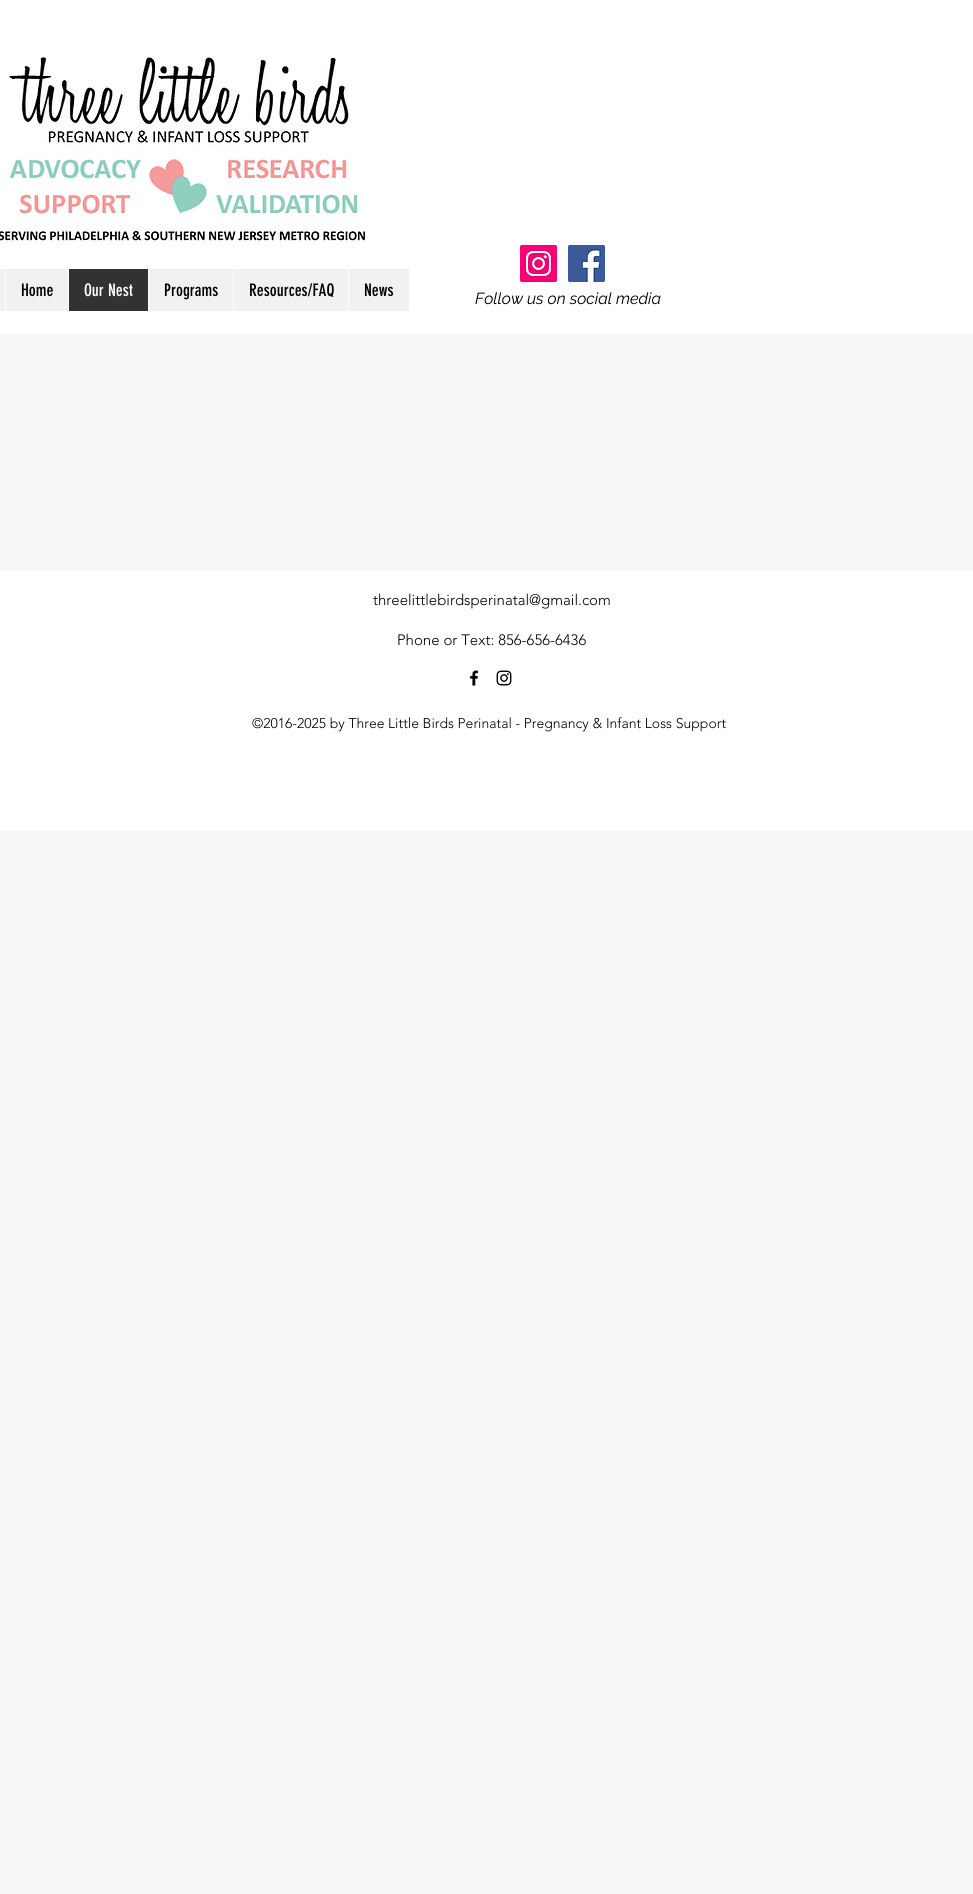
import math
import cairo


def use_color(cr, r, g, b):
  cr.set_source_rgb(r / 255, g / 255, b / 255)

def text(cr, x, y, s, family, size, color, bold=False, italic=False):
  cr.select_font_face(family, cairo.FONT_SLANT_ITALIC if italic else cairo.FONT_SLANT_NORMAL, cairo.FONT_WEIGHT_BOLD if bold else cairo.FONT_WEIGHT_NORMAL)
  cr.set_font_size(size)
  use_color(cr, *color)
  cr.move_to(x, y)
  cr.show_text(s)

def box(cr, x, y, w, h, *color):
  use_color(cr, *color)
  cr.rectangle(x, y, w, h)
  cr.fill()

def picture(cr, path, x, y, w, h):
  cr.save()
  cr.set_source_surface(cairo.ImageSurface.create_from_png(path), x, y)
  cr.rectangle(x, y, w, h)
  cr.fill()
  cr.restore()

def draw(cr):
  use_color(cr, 248, 248, 248)
  cr.paint()
  box(cr, 0, 0, 973, 334, 255, 255, 255)
  picture(cr, "img_01.png", 0, 57, 366, 186)
  picture(cr, "img_02.png", 520, 245, 37, 37)
  picture(cr, "img_03.png", 568, 245, 37, 37)
  box(cr, 0, 269, 409, 42, 241, 241, 241)
  box(cr, 5, 269, 1, 42, 255, 255, 255)
  box(cr, 69, 269, 79, 42, 50, 50, 50)
  box(cr, 68, 269, 1, 42, 255, 255, 255)
  box(cr, 148, 269, 1, 42, 255, 255, 255)
  box(cr, 233, 269, 1, 42, 255, 255, 255)
  box(cr, 348, 269, 1, 42, 255, 255, 255)
  box(cr, 0, 571, 973, 260, 255, 255, 255)
  picture(cr, "img_04.png", 470, 670, 9, 16)
  picture(cr, "img_05.png", 496, 670, 16, 16)
  text(cr, 21, 296, "Home", "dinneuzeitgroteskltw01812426", 17, (0, 0, 0))
  text(cr, 84, 296, "Our Nest", "dinneuzeitgroteskltw01812426", 17, (255, 255, 255))
  text(cr, 164, 296, "Programs", "dinneuzeitgroteskltw01812426", 17, (0, 0, 0))
  text(cr, 249, 296, "Resources/FAQ", "dinneuzeitgroteskltw01812426", 17, (0, 0, 0))
  text(cr, 364, 296, "News", "dinneuzeitgroteskltw01812426", 17, (0, 0, 0))
  text(cr, 475, 304, "Follow us on social media", "Raleway", 16, (0, 0, 0), italic=True)
  text(cr, 373, 605, "threelittlebirdsperinatal@gmail.com", "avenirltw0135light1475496 Light", 15, (0, 0, 0))
  text(cr, 397, 645, "Phone or Text: 856-656-6436", "avenirltw0135light1475496 Light", 15, (0, 0, 0))
  text(cr, 252, 728, "©2016-2025 by Three Little Birds Perinatal - Pregnancy & Infant Loss Support", "avenirltw0135light1475496 Light", 14, (0, 0, 0))


surface = cairo.ImageSurface(cairo.FORMAT_RGB24, 973, 1894)
cr = cairo.Context(surface)
options = cairo.FontOptions()
options.set_hint_metrics(cairo.HINT_METRICS_OFF)
options.set_hint_style(cairo.HINT_STYLE_NONE)
cr.set_font_options(options)
cr.set_miter_limit(4)
draw(cr)
surface.write_to_png("out.png")
